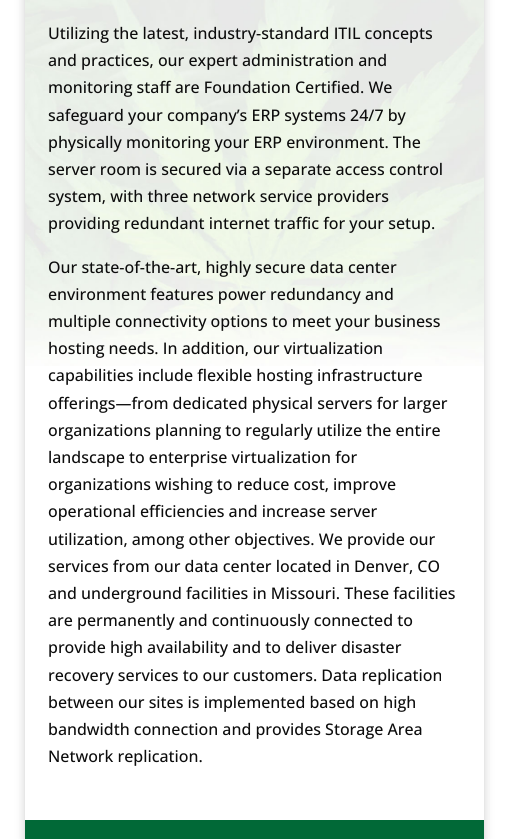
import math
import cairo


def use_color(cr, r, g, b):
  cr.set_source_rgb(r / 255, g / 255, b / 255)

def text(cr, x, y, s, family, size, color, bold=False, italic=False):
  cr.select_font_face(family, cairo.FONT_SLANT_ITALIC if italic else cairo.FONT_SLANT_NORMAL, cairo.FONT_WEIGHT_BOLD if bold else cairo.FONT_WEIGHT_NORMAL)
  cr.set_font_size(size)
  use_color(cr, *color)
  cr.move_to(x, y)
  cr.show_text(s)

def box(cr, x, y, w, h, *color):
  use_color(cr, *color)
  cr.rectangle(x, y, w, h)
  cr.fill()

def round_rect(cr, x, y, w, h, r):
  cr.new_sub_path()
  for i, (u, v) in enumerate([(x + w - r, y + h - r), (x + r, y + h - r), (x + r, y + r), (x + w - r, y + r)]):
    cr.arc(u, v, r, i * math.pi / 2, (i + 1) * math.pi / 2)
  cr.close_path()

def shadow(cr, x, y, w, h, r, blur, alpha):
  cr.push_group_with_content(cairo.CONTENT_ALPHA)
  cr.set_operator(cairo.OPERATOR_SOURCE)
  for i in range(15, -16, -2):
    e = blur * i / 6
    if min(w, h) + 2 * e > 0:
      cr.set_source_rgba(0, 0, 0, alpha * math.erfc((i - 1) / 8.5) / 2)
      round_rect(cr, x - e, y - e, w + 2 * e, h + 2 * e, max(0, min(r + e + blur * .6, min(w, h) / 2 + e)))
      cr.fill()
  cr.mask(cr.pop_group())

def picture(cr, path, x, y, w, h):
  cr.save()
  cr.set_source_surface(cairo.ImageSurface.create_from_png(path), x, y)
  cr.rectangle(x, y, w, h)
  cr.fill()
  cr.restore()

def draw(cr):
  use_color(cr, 255, 255, 255)
  cr.paint()
  cr.save()
  cr.set_fill_rule(cairo.FILL_RULE_EVEN_ODD)
  cr.new_path()
  cr.move_to(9, 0)
  cr.line_to(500, 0)
  cr.line_to(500, 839)
  cr.line_to(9, 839)
  cr.close_path()
  cr.move_to(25, -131)
  cr.line_to(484, -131)
  cr.line_to(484, 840)
  cr.line_to(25, 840)
  cr.close_path()
  cr.clip()
  use_color(cr, 0, 0, 0)
  shadow(cr, 25, -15, 459, 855, 0, 5, 0.2)
  cr.restore()
  picture(cr, "img_01.png", 25, 0, 459, 366)
  box(cr, 25, 820, 459, 19, 1, 105, 55)
  text(cr, 48, 39, "Utilizing the latest, industry-standard ITIL concepts", "Open Sans Medium", 16, (12, 12, 12))
  text(cr, 48, 66, "and practices, our expert administration and", "Open Sans Medium", 16, (12, 12, 12))
  text(cr, 48, 93, "monitoring staff are Foundation Certified. We", "Open Sans Medium", 16, (12, 12, 12))
  text(cr, 48, 121, "safeguard your company’s ERP systems 24/7 by", "Open Sans Medium", 16, (12, 12, 12))
  text(cr, 48, 148, "physically monitoring your ERP environment. The", "Open Sans Medium", 16, (12, 12, 12))
  text(cr, 48, 175, "server room is secured via a separate access control", "Open Sans Medium", 16, (12, 12, 12))
  text(cr, 48, 202, "system, with three network service providers", "Open Sans Medium", 16, (12, 12, 12))
  text(cr, 48, 229, "providing redundant internet traffic for your setup.", "Open Sans Medium", 16, (12, 12, 12))
  text(cr, 48, 273, "Our state-of-the-art, highly secure data center", "Open Sans Medium", 16, (12, 12, 12))
  text(cr, 48, 300, "environment features power redundancy and", "Open Sans Medium", 16, (12, 12, 12))
  text(cr, 48, 327, "multiple connectivity options to meet your business", "Open Sans Medium", 16, (12, 12, 12))
  text(cr, 48, 354, "hosting needs. In addition, our virtualization", "Open Sans Medium", 16, (12, 12, 12))
  text(cr, 48, 381, "capabilities include flexible hosting infrastructure", "Open Sans Medium", 16, (12, 12, 12))
  text(cr, 48, 409, "offerings—from dedicated physical servers for larger", "Open Sans Medium", 16, (12, 12, 12))
  text(cr, 48, 436, "organizations planning to regularly utilize the entire", "Open Sans Medium", 16, (12, 12, 12))
  text(cr, 48, 463, "landscape to enterprise virtualization for", "Open Sans Medium", 16, (12, 12, 12))
  text(cr, 48, 490, "organizations wishing to reduce cost, improve", "Open Sans Medium", 16, (12, 12, 12))
  text(cr, 48, 517, "operational efficiencies and increase server", "Open Sans Medium", 16, (12, 12, 12))
  text(cr, 48, 545, "utilization, among other objectives. We provide our", "Open Sans Medium", 16, (12, 12, 12))
  text(cr, 48, 572, "services from our data center located in Denver, CO", "Open Sans Medium", 16, (12, 12, 12))
  text(cr, 48, 599, "and underground facilities in Missouri. These facilities", "Open Sans Medium", 16, (12, 12, 12))
  text(cr, 48, 626, "are permanently and continuously connected to", "Open Sans Medium", 16, (12, 12, 12))
  text(cr, 48, 653, "provide high availability and to deliver disaster", "Open Sans Medium", 16, (12, 12, 12))
  text(cr, 48, 681, "recovery services to our customers. Data replication", "Open Sans Medium", 16, (12, 12, 12))
  text(cr, 48, 708, "between our sites is implemented based on high", "Open Sans Medium", 16, (12, 12, 12))
  text(cr, 48, 735, "bandwidth connection and provides Storage Area", "Open Sans Medium", 16, (12, 12, 12))
  text(cr, 48, 762, "Network replication.", "Open Sans Medium", 16, (12, 12, 12))


surface = cairo.ImageSurface(cairo.FORMAT_RGB24, 509, 839)
cr = cairo.Context(surface)
options = cairo.FontOptions()
options.set_hint_metrics(cairo.HINT_METRICS_OFF)
options.set_hint_style(cairo.HINT_STYLE_NONE)
cr.set_font_options(options)
cr.set_miter_limit(4)
draw(cr)
surface.write_to_png("out.png")
